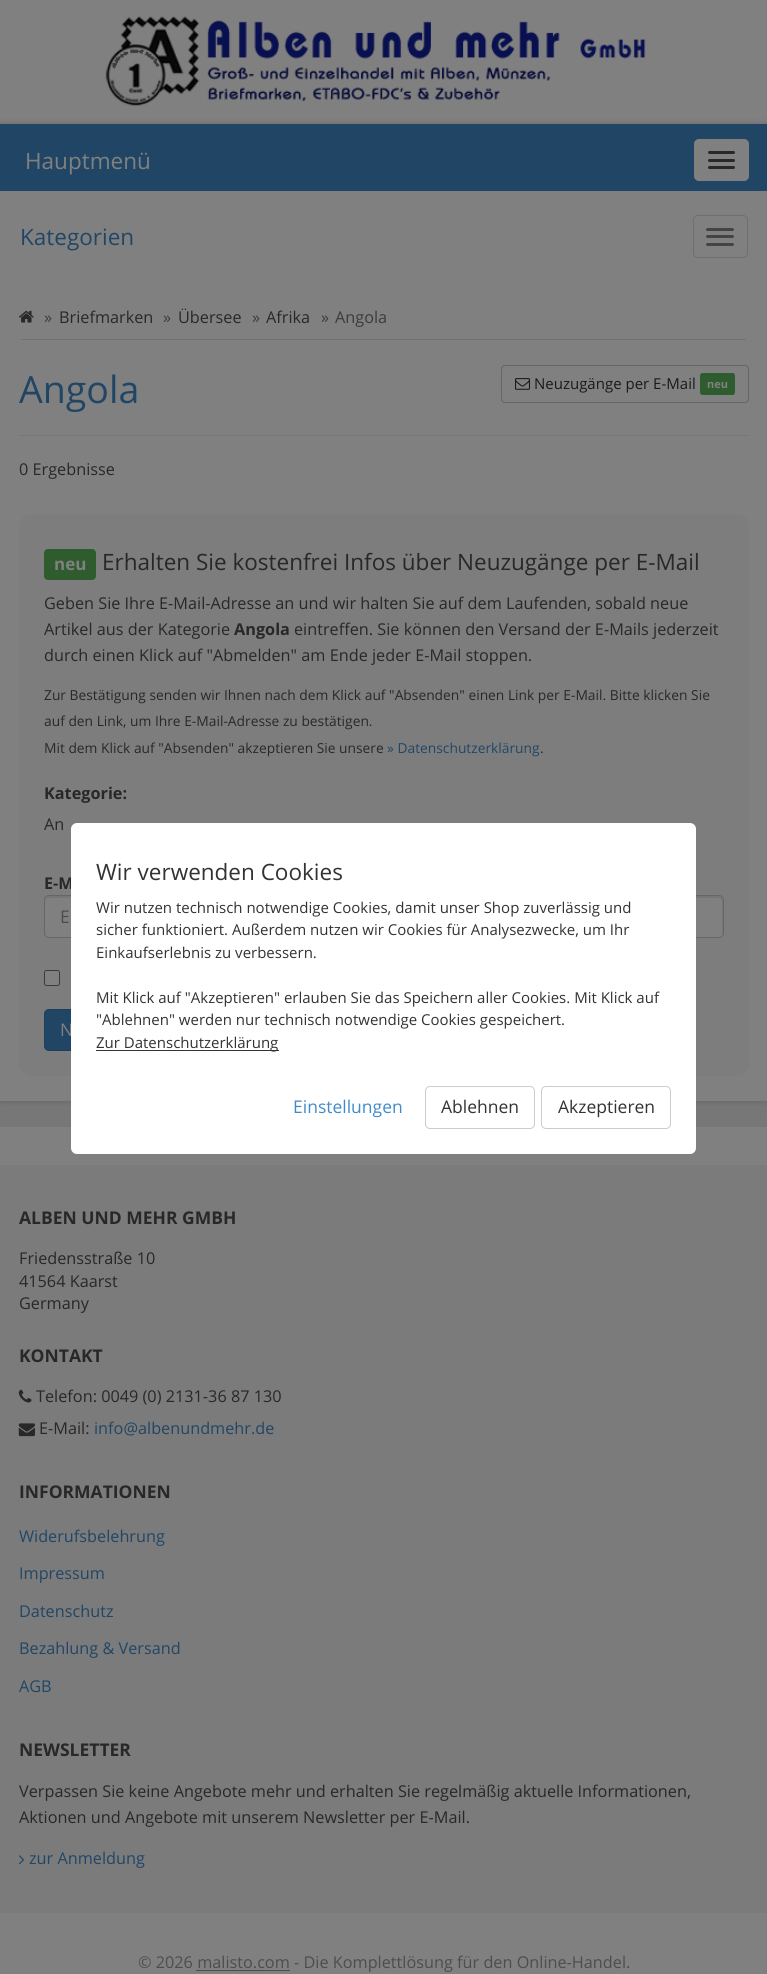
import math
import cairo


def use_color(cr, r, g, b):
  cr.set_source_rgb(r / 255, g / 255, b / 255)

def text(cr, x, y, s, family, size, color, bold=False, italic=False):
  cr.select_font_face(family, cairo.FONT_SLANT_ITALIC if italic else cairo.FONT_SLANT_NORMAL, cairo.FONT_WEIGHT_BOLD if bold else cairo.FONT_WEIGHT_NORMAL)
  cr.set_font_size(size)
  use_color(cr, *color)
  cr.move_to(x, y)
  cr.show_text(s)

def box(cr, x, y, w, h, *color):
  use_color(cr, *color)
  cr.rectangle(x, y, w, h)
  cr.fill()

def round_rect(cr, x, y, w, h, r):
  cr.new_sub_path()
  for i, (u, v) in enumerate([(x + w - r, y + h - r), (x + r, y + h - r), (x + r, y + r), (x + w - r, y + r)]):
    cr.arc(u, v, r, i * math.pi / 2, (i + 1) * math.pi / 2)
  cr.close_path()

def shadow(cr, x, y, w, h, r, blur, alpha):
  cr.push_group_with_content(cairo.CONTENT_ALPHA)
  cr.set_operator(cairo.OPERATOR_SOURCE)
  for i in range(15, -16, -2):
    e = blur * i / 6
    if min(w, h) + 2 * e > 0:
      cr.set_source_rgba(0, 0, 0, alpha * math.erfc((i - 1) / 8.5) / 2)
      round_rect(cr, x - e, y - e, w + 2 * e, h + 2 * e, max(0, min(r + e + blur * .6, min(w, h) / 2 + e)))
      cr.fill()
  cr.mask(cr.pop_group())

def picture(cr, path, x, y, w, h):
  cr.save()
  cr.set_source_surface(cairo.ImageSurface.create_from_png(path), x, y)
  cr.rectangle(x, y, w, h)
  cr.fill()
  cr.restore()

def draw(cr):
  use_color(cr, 119, 119, 119)
  cr.paint()
  box(cr, 0, 0, 767, 124, 128, 128, 128)
  picture(cr, "img_01.png", 105, 16, 541, 90)
  use_color(cr, 0, 0, 0)
  shadow(cr, 0, 124, 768, 977, 0, 3, 0.2)
  box(cr, 0, 191, 767, 910, 128, 128, 128)
  box(cr, 0, 124, 767, 67, 33, 70, 101)
  use_color(cr, 128, 128, 128)
  round_rect(cr, 694, 139, 55, 42, 5)
  cr.fill()
  use_color(cr, 40, 40, 40)
  round_rect(cr, 708, 151, 27, 3, 1.5)
  cr.fill()
  round_rect(cr, 708, 159, 27, 3, 1.5)
  cr.fill()
  round_rect(cr, 708, 166, 27, 3, 1.5)
  cr.fill()
  round_rect(cr, 693.5, 215.5, 54, 42, 4.5)
  use_color(cr, 111, 111, 111)
  cr.set_line_width(1)
  cr.stroke()
  use_color(cr, 68, 68, 68)
  round_rect(cr, 706, 228, 28, 3, 1.5)
  cr.fill()
  round_rect(cr, 706, 235, 28, 3, 1.5)
  cr.fill()
  round_rect(cr, 706, 243, 28, 3, 1.5)
  cr.fill()
  box(cr, 21, 339, 725, 1, 114, 114, 114)
  picture(cr, "img_02.png", 19, 310, 15, 13)
  box(cr, 19, 435, 730, 1, 119, 119, 119)
  round_rect(cr, 501.5, 365.5, 247, 37, 3.5)
  use_color(cr, 102, 102, 102)
  cr.stroke()
  picture(cr, "img_03.png", 515, 378, 15, 12)
  use_color(cr, 46, 92, 46)
  round_rect(cr, 700, 373, 35, 22, 2.5)
  cr.fill()
  use_color(cr, 125, 125, 125)
  round_rect(cr, 19, 514, 730, 562, 13)
  cr.fill()
  use_color(cr, 46, 92, 46)
  round_rect(cr, 44, 549, 52, 31, 4)
  cr.fill()
  use_color(cr, 128, 128, 128)
  round_rect(cr, 44, 895, 680, 43, 5)
  cr.fill()
  use_color(cr, 118, 118, 118)
  cr.new_path()
  cr.move_to(49, 898)
  cr.line_to(719, 898)
  cr.curve_to(721, 898, 722, 899, 722, 901)
  cr.line_to(722, 935)
  cr.curve_to(723, 934, 723, 933, 723, 932)
  cr.line_to(723, 900)
  cr.curve_to(723, 898, 721, 896, 719, 896)
  cr.line_to(49, 896)
  cr.curve_to(47, 896, 45, 898, 45, 900)
  cr.line_to(45, 901)
  cr.curve_to(45, 899, 47, 898, 49, 898)
  cr.close_path()
  cr.fill()
  round_rect(cr, 44.5, 895.5, 679, 42, 4.5)
  use_color(cr, 102, 102, 102)
  cr.stroke()
  use_color(cr, 128, 128, 128)
  round_rect(cr, 44.5, 970.5, 15, 15, 2)
  cr.fill_preserve()
  use_color(cr, 59, 59, 59)
  cr.stroke()
  use_color(cr, 33, 70, 101)
  round_rect(cr, 44.5, 1009.5, 278, 41, 4.5)
  cr.fill_preserve()
  use_color(cr, 27, 63, 95)
  cr.stroke()
  box(cr, 0, 1127, 767, 38, 128, 128, 128)
  box(cr, 0, 1165, 767, 748, 123, 123, 123)
  picture(cr, "img_04.png", 18, 1389, 14, 14)
  picture(cr, "img_05.png", 18, 1423, 17, 14)
  picture(cr, "img_06.png", 18, 1855, 7, 10)
  box(cr, 0, 1913, 767, 61, 128, 128, 128)
  box(cr, 196, 1970, 94, 1, 77, 77, 77)
  text(cr, 25, 169, "Hauptmenü", "Open Sans", 22.5, (128, 128, 128))
  text(cr, 20, 245, "Kategorien", "Open Sans", 22.5, (33, 70, 101))
  text(cr, 44, 323, "»", "Open Sans", 16.25, (60, 60, 60))
  text(cr, 59, 323, "Briefmarken", "Open Sans", 16.25, (40, 40, 40))
  text(cr, 163, 323, "»", "Open Sans", 16.25, (60, 60, 60))
  text(cr, 178, 323, "Übersee", "Open Sans", 16.25, (40, 40, 40))
  text(cr, 252, 323, "»", "Open Sans", 16.25, (60, 60, 60))
  text(cr, 266, 323, "Afrika", "Open Sans", 16.25, (40, 40, 40))
  text(cr, 321, 323, "»", "Open Sans", 16.25, (60, 60, 60))
  text(cr, 335, 323, "Angola", "Open Sans", 16.25, (60, 60, 60))
  text(cr, 19, 403, "Angola", "Open Sans", 37.5, (33, 70, 101))
  text(cr, 534, 389, "Neuzugänge per E-Mail", "Open Sans", 15, (26, 26, 26))
  text(cr, 707, 388, "neu", "Open Sans", 11, (128, 128, 128), bold=True)
  text(cr, 19, 475, "0 Ergebnisse", "Open Sans", 16.25, (40, 40, 40))
  text(cr, 54, 570, "neu", "Open Sans", 17, (128, 128, 128), bold=True)
  text(cr, 102, 570, "Erhalten Sie kostenfrei Infos über Neuzugänge per E-Mail", "Open Sans", 22.5, (40, 40, 40))
  text(cr, 44, 609, "Geben Sie Ihre E-Mail-Adresse an und wir halten Sie auf dem Laufenden, sobald neue", "Open Sans", 16.25, (40, 40, 40))
  text(cr, 44, 635, "Artikel aus der Kategorie", "Open Sans", 16.25, (40, 40, 40))
  text(cr, 234, 635, "Angola", "Open Sans", 16.25, (40, 40, 40), bold=True)
  text(cr, 294, 635, "eintreffen. Sie können den Versand der E-Mails jederzeit", "Open Sans", 16.25, (40, 40, 40))
  text(cr, 44, 661, "durch einen Klick auf \"Abmelden\" am Ende jeder E-Mail stoppen.", "Open Sans", 16.25, (40, 40, 40))
  text(cr, 44, 700, "Zur Bestätigung senden wir Ihnen nach dem Klick auf \"Absenden\" einen Link per E-Mail. Bitte klicken Sie", "Open Sans", 13.8, (40, 40, 40))
  text(cr, 44, 726, "auf den Link, um Ihre E-Mail-Adresse zu bestätigen.", "Open Sans", 13.8, (40, 40, 40))
  text(cr, 44, 753, "Mit dem Klick auf \"Absenden\" akzeptieren Sie unsere", "Open Sans", 13.8, (40, 40, 40))
  text(cr, 387, 753, "» Datenschutzerklärung", "Open Sans", 13.8, (33, 70, 101))
  text(cr, 540, 753, ".", "Open Sans", 13.8, (40, 40, 40))
  text(cr, 44, 799, "Kategorie:", "Open Sans", 16.25, (40, 40, 40), bold=True)
  text(cr, 44, 830, "An", "Open Sans", 16.25, (40, 40, 40))
  text(cr, 44, 889, "E-M", "Open Sans", 16.25, (40, 40, 40), bold=True)
  text(cr, 60, 923, "E", "Open Sans", 17.5, (77, 77, 77))
  text(cr, 60, 1036, "N", "Open Sans", 17.5, (128, 128, 128))
  use_color(cr, 255, 255, 255)
  round_rect(cr, 71, 823, 625, 331, 6)
  cr.fill()
  text(cr, 96, 880, "Wir verwenden Cookies", "Open Sans", 22.5, (51, 51, 51))
  text(cr, 96, 913, "Wir nutzen technisch notwendige Cookies, damit unser Shop zuverlässig und", "Open Sans", 15, (51, 51, 51))
  text(cr, 96, 935, "sicher funktioniert. Außerdem nutzen wir Cookies für Analysezwecke, um Ihr", "Open Sans", 15, (51, 51, 51))
  text(cr, 96, 958, "Einkaufserlebnis zu verbessern.", "Open Sans", 15, (51, 51, 51))
  text(cr, 96, 1003, "Mit Klick auf \"Akzeptieren\" erlauben Sie das Speichern aller Cookies. Mit Klick auf", "Open Sans", 15, (51, 51, 51))
  text(cr, 96, 1025, "\"Ablehnen\" werden nur technisch notwendige Cookies gespeichert.", "Open Sans", 15, (51, 51, 51))
  box(cr, 96, 1050, 183, 1, 51, 51, 51)
  text(cr, 96, 1048, "Zur Datenschutzerklärung", "Open Sans", 15, (51, 51, 51))
  text(cr, 293, 1113, "Einstellungen", "Open Sans", 17.5, (66, 139, 202))
  round_rect(cr, 425.5, 1086.5, 109, 42, 4.5)
  use_color(cr, 204, 204, 204)
  cr.stroke()
  text(cr, 441, 1113, "Ablehnen", "Open Sans", 17.5, (51, 51, 51))
  round_rect(cr, 541.5, 1086.5, 129, 42, 4.5)
  use_color(cr, 204, 204, 204)
  cr.stroke()
  text(cr, 558, 1113, "Akzeptieren", "Open Sans", 17.5, (51, 51, 51))
  text(cr, 19, 1224, "ALBEN UND MEHR GMBH", "Open Sans", 17.5, (40, 40, 40), bold=True)
  text(cr, 19, 1264, "Friedensstraße 10", "Open Sans", 16.25, (40, 40, 40))
  text(cr, 19, 1287, "41564 Kaarst", "Open Sans", 16.25, (40, 40, 40))
  text(cr, 19, 1309, "Germany", "Open Sans", 16.25, (40, 40, 40))
  text(cr, 19, 1362, "KONTAKT", "Open Sans", 17.5, (40, 40, 40), bold=True)
  text(cr, 36, 1402, "Telefon: 0049 (0) 2131-36 87 130", "Open Sans", 16.25, (40, 40, 40))
  text(cr, 39, 1434, "E-Mail:", "Open Sans", 16.25, (40, 40, 40))
  text(cr, 94, 1434, "info@albenundmehr.de", "Open Sans", 16.25, (33, 70, 101))
  text(cr, 19, 1498, "INFORMATIONEN", "Open Sans", 17.5, (40, 40, 40), bold=True)
  text(cr, 19, 1542, "Widerufsbelehrung", "Open Sans", 16.25, (33, 70, 101))
  text(cr, 19, 1579, "Impressum", "Open Sans", 16.25, (33, 70, 101))
  text(cr, 19, 1617, "Datenschutz", "Open Sans", 16.25, (33, 70, 101))
  text(cr, 19, 1654, "Bezahlung & Versand", "Open Sans", 16.25, (33, 70, 101))
  text(cr, 19, 1692, "AGB", "Open Sans", 16.25, (33, 70, 101))
  text(cr, 19, 1756, "NEWSLETTER", "Open Sans", 17.5, (40, 40, 40), bold=True)
  text(cr, 19, 1797, "Verpassen Sie keine Angebote mehr und erhalten Sie regelmäßig aktuelle Informationen,", "Open Sans", 16.25, (40, 40, 40))
  text(cr, 19, 1823, "Aktionen und Angebote mit unserem Newsletter per E-Mail.", "Open Sans", 16.25, (40, 40, 40))
  text(cr, 29, 1864, "zur Anmeldung", "Open Sans", 16.25, (33, 70, 101))
  text(cr, 138, 1968, "© 2026 malisto.com - Die Komplettlösung für den Online-Handel.", "Open Sans", 16.25, (77, 77, 77))


surface = cairo.ImageSurface(cairo.FORMAT_RGB24, 767, 1974)
cr = cairo.Context(surface)
options = cairo.FontOptions()
options.set_hint_metrics(cairo.HINT_METRICS_OFF)
options.set_hint_style(cairo.HINT_STYLE_NONE)
cr.set_font_options(options)
cr.set_miter_limit(4)
draw(cr)
surface.write_to_png("out.png")
